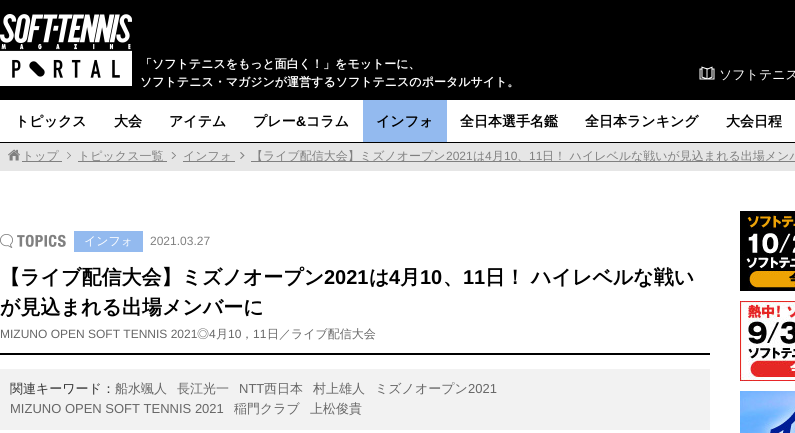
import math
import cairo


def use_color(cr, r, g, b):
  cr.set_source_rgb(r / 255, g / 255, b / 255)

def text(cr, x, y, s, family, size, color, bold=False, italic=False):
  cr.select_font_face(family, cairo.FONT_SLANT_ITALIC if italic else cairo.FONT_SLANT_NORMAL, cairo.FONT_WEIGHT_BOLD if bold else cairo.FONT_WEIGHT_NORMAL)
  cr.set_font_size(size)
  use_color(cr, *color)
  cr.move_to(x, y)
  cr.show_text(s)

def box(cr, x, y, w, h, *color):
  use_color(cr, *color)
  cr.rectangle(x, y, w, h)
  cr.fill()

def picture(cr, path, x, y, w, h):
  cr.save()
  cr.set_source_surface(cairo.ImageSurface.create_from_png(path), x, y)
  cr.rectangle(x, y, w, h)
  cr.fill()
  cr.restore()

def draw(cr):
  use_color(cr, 255, 255, 255)
  cr.paint()
  box(cr, 0, 0, 795, 100, 0, 0, 0)
  picture(cr, "img_01.png", 0, 14, 132, 72)
  picture(cr, "img_02.png", 699, 66, 16, 14)
  box(cr, 0, 142, 795, 1, 0, 0, 0)
  box(cr, 363, 100, 84, 42, 147, 186, 239)
  box(cr, 0, 143, 795, 28, 230, 230, 230)
  picture(cr, "img_03.png", 8, 149, 12, 12)
  box(cr, 22, 161, 40, 1, 128, 128, 128)
  cr.new_path()
  cr.move_to(67.5, 152)
  cr.line_to(71, 155.5)
  cr.line_to(70.5, 156)
  cr.line_to(67, 152.5)
  cr.close_path()
  cr.fill()
  cr.new_path()
  cr.move_to(70.5, 155)
  cr.line_to(71, 155.5)
  cr.line_to(67.5, 159)
  cr.line_to(67, 158.5)
  cr.close_path()
  cr.fill()
  box(cr, 78, 161, 89, 1, 128, 128, 128)
  cr.new_path()
  cr.move_to(172.5, 152)
  cr.line_to(176, 155.5)
  cr.line_to(175.5, 156)
  cr.line_to(171.5, 152.5)
  cr.close_path()
  cr.fill()
  cr.new_path()
  cr.move_to(175.5, 155)
  cr.line_to(176, 155.5)
  cr.line_to(172.5, 159)
  cr.line_to(171.5, 158.5)
  cr.close_path()
  cr.fill()
  box(cr, 183, 161, 52, 1, 128, 128, 128)
  cr.new_path()
  cr.move_to(241, 152)
  cr.line_to(244.5, 155.5)
  cr.line_to(243.5, 156)
  cr.line_to(240, 152.5)
  cr.close_path()
  cr.fill()
  cr.new_path()
  cr.move_to(243.5, 155)
  cr.line_to(244.5, 155.5)
  cr.line_to(241, 159)
  cr.line_to(240, 158.5)
  cr.close_path()
  cr.fill()
  box(cr, 251, 161, 544, 1, 128, 128, 128)
  box(cr, 0, 353, 710, 2, 0, 0, 0)
  picture(cr, "img_04.png", 0, 234, 66, 14)
  box(cr, 74, 231, 69, 21, 147, 186, 239)
  box(cr, 0, 369, 710, 61, 242, 242, 242)
  picture(cr, "img_05.png", 740, 211, 55, 80)
  picture(cr, "img_06.png", 740, 301, 55, 80)
  picture(cr, "img_07.png", 740, 391, 55, 42)
  text(cr, 140, 68, "「ソフトテニスをもっと面白く！」をモットーに、", "WenQuanYi Zen Hei", 12, (255, 255, 255), bold=True)
  text(cr, 140, 86, "ソフトテニス・マガジンが運営するソフトテニスのポータルサイト。", "WenQuanYi Zen Hei", 12, (255, 255, 255), bold=True)
  text(cr, 719, 79, "ソフトテニス", "WenQuanYi Zen Hei Medium", 13, (255, 255, 255))
  text(cr, 15, 126, "トピックス", "WenQuanYi Zen Hei", 14, (0, 0, 0), bold=True)
  text(cr, 114, 126, "大会", "WenQuanYi Zen Hei", 14, (0, 0, 0), bold=True)
  text(cr, 169, 126, "アイテム", "WenQuanYi Zen Hei", 14, (0, 0, 0), bold=True)
  text(cr, 253, 126, "プレー", "WenQuanYi Zen Hei", 14, (0, 0, 0), bold=True)
  text(cr, 296, 126, "&", "Liberation Sans", 14, (0, 0, 0), bold=True)
  text(cr, 306, 126, "コラム", "WenQuanYi Zen Hei", 14, (0, 0, 0), bold=True)
  text(cr, 376, 126, "インフォ", "WenQuanYi Zen Hei", 14, (0, 0, 0), bold=True)
  text(cr, 460, 126, "全日本選手名鑑", "WenQuanYi Zen Hei", 14, (0, 0, 0), bold=True)
  text(cr, 585, 126, "全日本ランキング", "WenQuanYi Zen Hei", 14, (0, 0, 0), bold=True)
  text(cr, 726, 126, "大会日程", "WenQuanYi Zen Hei", 14, (0, 0, 0), bold=True)
  text(cr, 22, 160, "トップ", "WenQuanYi Zen Hei Medium", 12, (128, 128, 128))
  text(cr, 78, 160, "トピックス一覧", "WenQuanYi Zen Hei Medium", 12, (128, 128, 128))
  text(cr, 183, 160, "インフォ", "WenQuanYi Zen Hei Medium", 12, (128, 128, 128))
  text(cr, 251, 160, "【ライブ配信大会】ミズノオープン", "WenQuanYi Zen Hei Medium", 12, (128, 128, 128))
  text(cr, 446, 160, "2021", "Liberation Sans", 12, (128, 128, 128))
  text(cr, 473, 160, "は", "WenQuanYi Zen Hei Medium", 12, (128, 128, 128))
  text(cr, 485, 160, "4", "Liberation Sans", 12, (128, 128, 128))
  text(cr, 492, 160, "月", "WenQuanYi Zen Hei Medium", 12, (128, 128, 128))
  text(cr, 504, 160, "10", "Liberation Sans", 12, (128, 128, 128))
  text(cr, 529, 160, "11", "Liberation Sans", 12, (128, 128, 128))
  text(cr, 542, 160, "日！ ハイレベルな戦いが見込まれる出場メンバ", "WenQuanYi Zen Hei Medium", 12, (128, 128, 128))
  text(cr, 517, 160, "、", "WenQuanYi Zen Hei Medium", 12, (128, 128, 128))
  text(cr, 84, 245, "インフォ", "WenQuanYi Zen Hei Medium", 12, (255, 255, 255))
  text(cr, 150, 245, "2021.03.27", "Liberation Sans", 12, (128, 128, 128))
  text(cr, 0, 284, "【ライブ配信大会】ミズノオープン", "WenQuanYi Zen Hei", 20, (0, 0, 0), bold=True)
  text(cr, 324, 284, "2021", "Liberation Sans", 20, (0, 0, 0), bold=True)
  text(cr, 369, 284, "は", "WenQuanYi Zen Hei", 20, (0, 0, 0), bold=True)
  text(cr, 389, 284, "4", "Liberation Sans", 20, (0, 0, 0), bold=True)
  text(cr, 400, 284, "月", "WenQuanYi Zen Hei", 20, (0, 0, 0), bold=True)
  text(cr, 420, 284, "10", "Liberation Sans", 20, (0, 0, 0), bold=True)
  text(cr, 463, 284, "11", "Liberation Sans", 20, (0, 0, 0), bold=True)
  text(cr, 485, 284, "日！ ハイレベルな戦い", "WenQuanYi Zen Hei", 20, (0, 0, 0), bold=True)
  text(cr, 443, 284, "、", "WenQuanYi Zen Hei", 20, (0, 0, 0), bold=True)
  text(cr, 0, 314, "が見込まれる出場メンバーに", "WenQuanYi Zen Hei", 20, (0, 0, 0), bold=True)
  text(cr, 0, 338, "MIZUNO OPEN SOFT TENNIS 2021", "Liberation Sans", 12, (102, 102, 102))
  text(cr, 197, 338, "◎", "WenQuanYi Zen Hei Medium", 12, (102, 102, 102))
  text(cr, 209, 338, "4", "Liberation Sans", 12, (102, 102, 102))
  text(cr, 216, 338, "月", "WenQuanYi Zen Hei Medium", 12, (102, 102, 102))
  text(cr, 228, 338, "10", "Liberation Sans", 12, (102, 102, 102))
  text(cr, 241, 338, "，", "WenQuanYi Zen Hei Medium", 12, (102, 102, 102))
  text(cr, 253, 338, "11", "Liberation Sans", 12, (102, 102, 102))
  text(cr, 267, 338, "日／ライブ配信大会", "WenQuanYi Zen Hei Medium", 12, (102, 102, 102))
  text(cr, 10, 393, "関連キーワード：", "WenQuanYi Zen Hei Medium", 13, (51, 51, 51))
  text(cr, 115, 393, "船水颯人", "WenQuanYi Zen Hei Medium", 13, (102, 102, 102))
  text(cr, 177, 393, "長江光一", "WenQuanYi Zen Hei Medium", 13, (102, 102, 102))
  text(cr, 239, 393, "NTT", "Liberation Sans", 13, (102, 102, 102))
  text(cr, 264, 393, "西日本", "WenQuanYi Zen Hei Medium", 13, (102, 102, 102))
  text(cr, 313, 393, "村上雄人", "WenQuanYi Zen Hei Medium", 13, (102, 102, 102))
  text(cr, 375, 393, "ミズノオープン", "WenQuanYi Zen Hei Medium", 13, (102, 102, 102))
  text(cr, 468, 393, "2021", "Liberation Sans", 13, (102, 102, 102))
  text(cr, 10, 413, "MIZUNO OPEN SOFT TENNIS 2021", "Liberation Sans", 13, (102, 102, 102))
  text(cr, 234, 413, "稲門クラブ", "WenQuanYi Zen Hei Medium", 13, (102, 102, 102))
  text(cr, 310, 413, "上松俊貴", "WenQuanYi Zen Hei Medium", 13, (102, 102, 102))


surface = cairo.ImageSurface(cairo.FORMAT_RGB24, 795, 433)
cr = cairo.Context(surface)
options = cairo.FontOptions()
options.set_hint_metrics(cairo.HINT_METRICS_OFF)
options.set_hint_style(cairo.HINT_STYLE_NONE)
cr.set_font_options(options)
cr.set_miter_limit(4)
draw(cr)
surface.write_to_png("out.png")
